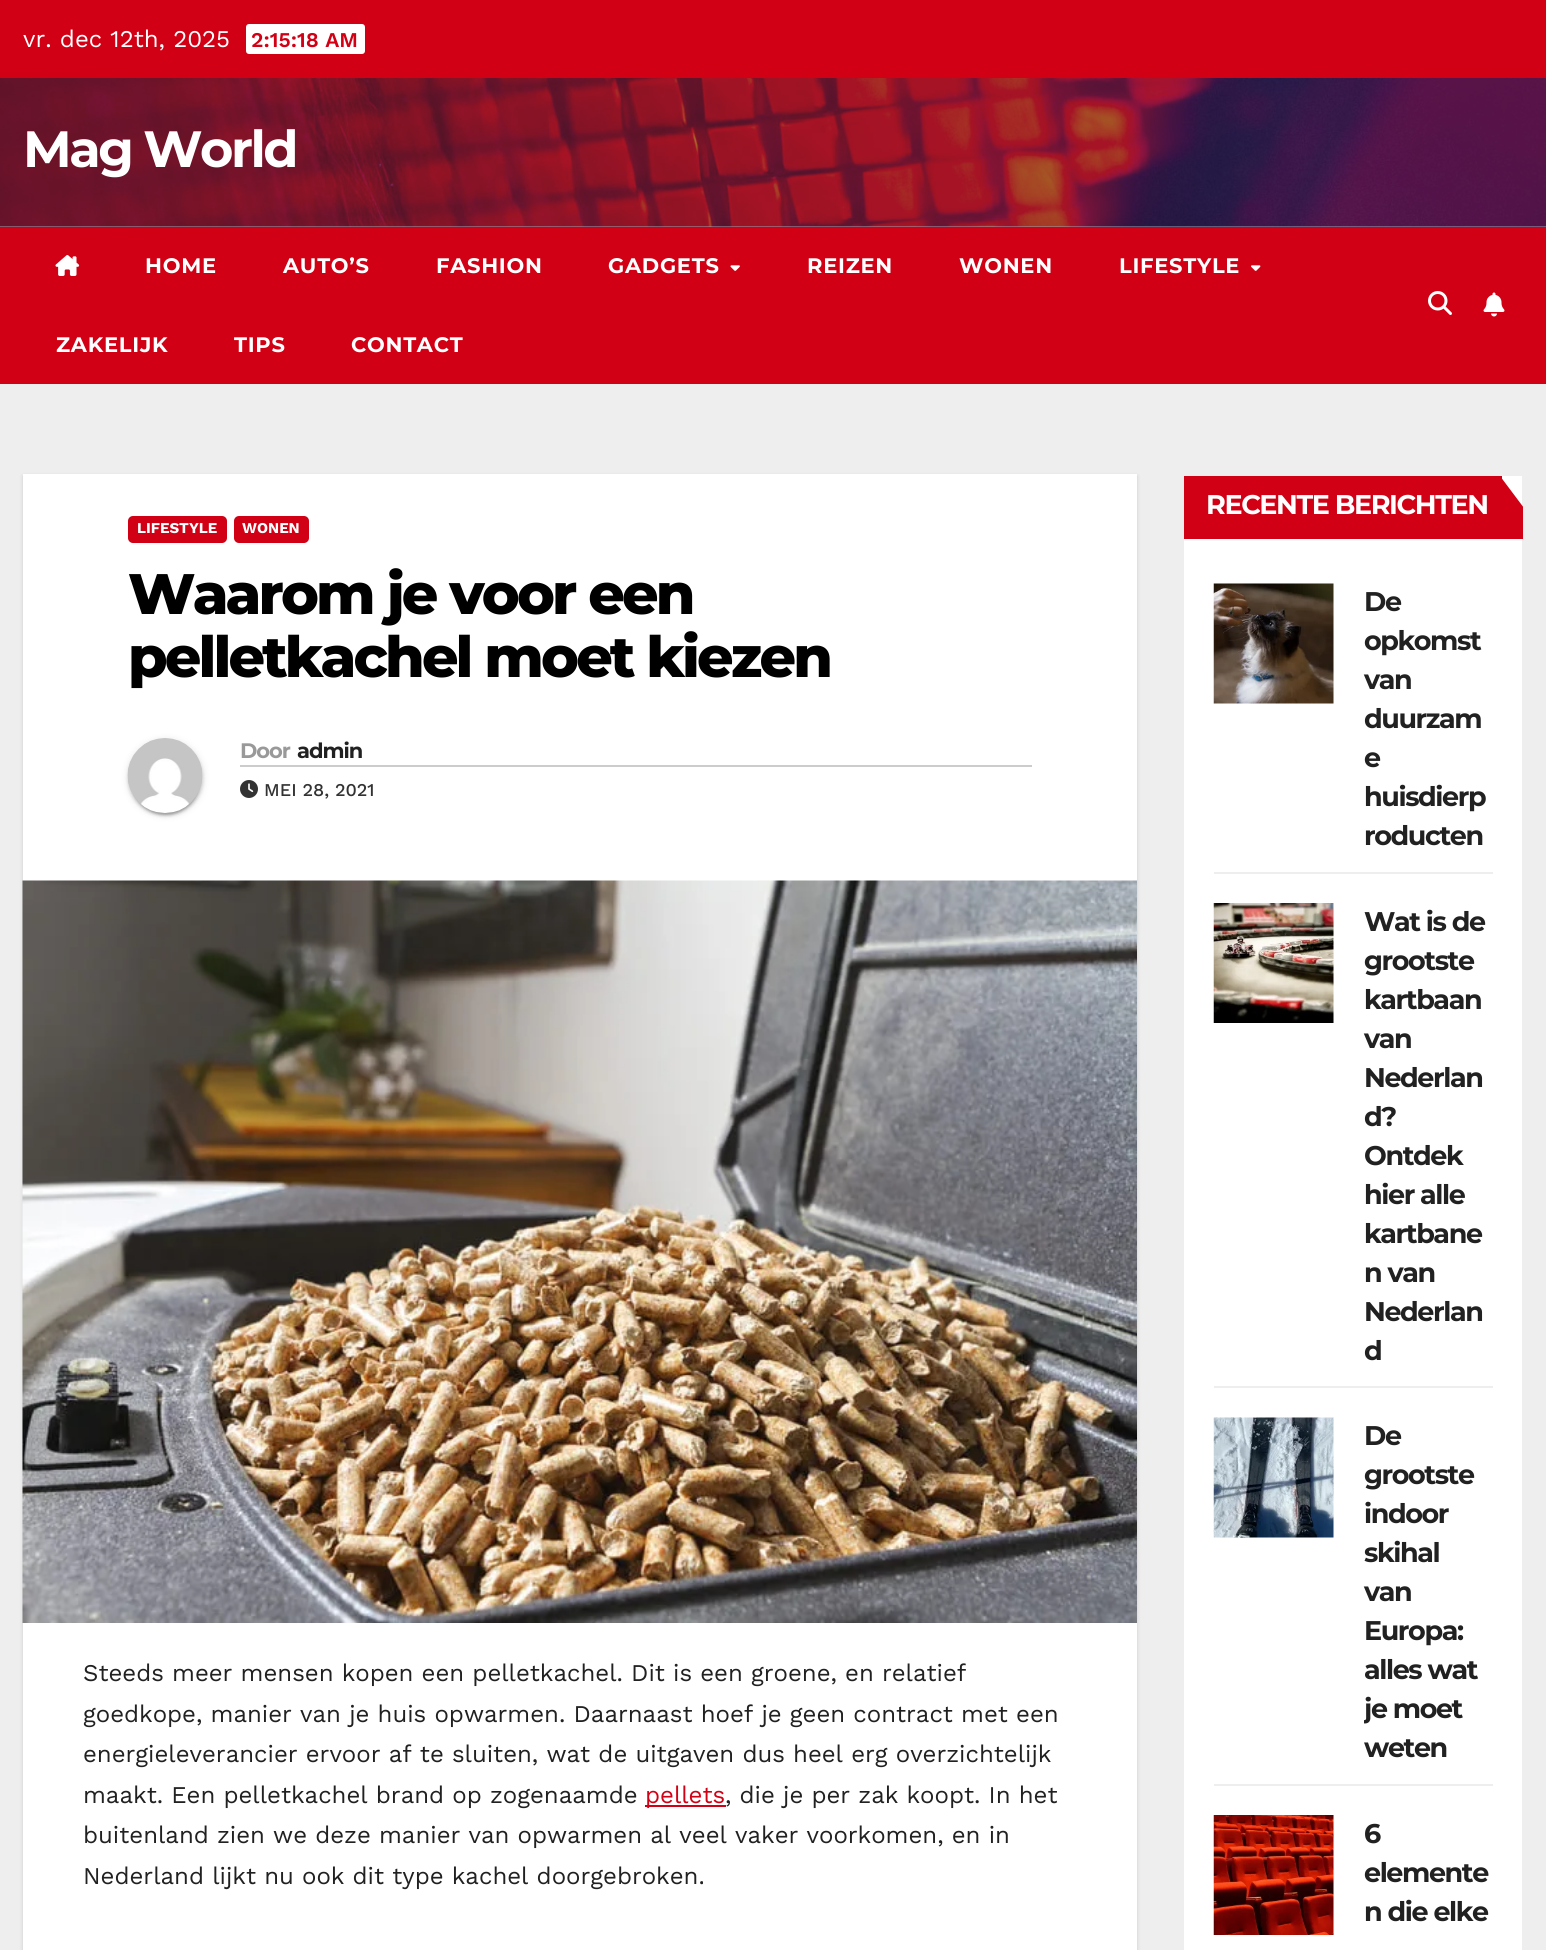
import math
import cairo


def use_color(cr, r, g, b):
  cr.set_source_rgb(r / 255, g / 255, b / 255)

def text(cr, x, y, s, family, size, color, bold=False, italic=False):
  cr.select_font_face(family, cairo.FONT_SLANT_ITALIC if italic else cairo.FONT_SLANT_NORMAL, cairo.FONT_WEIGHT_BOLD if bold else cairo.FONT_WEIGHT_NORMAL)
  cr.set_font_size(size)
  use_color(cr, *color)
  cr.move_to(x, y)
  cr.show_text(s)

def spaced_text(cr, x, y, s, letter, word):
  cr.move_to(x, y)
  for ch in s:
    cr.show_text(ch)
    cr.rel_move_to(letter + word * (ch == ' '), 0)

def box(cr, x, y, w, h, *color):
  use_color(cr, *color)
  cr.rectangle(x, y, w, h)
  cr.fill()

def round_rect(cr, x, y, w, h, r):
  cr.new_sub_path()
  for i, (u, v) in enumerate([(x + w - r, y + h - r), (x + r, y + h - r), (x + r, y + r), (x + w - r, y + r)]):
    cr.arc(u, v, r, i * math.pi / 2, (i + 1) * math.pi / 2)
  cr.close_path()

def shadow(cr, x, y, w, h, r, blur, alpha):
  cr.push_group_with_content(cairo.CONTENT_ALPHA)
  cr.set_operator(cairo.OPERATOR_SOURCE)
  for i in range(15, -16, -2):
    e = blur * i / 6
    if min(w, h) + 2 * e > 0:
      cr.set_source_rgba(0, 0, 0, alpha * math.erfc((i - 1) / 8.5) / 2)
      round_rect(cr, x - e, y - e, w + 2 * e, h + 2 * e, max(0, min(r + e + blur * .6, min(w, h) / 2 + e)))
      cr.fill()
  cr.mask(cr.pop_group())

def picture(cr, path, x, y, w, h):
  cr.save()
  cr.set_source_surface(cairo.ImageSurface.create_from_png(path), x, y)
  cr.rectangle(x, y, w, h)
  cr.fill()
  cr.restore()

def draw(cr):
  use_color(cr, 238, 238, 238)
  cr.paint()
  box(cr, 0, 226, 1546, 1, 156, 162, 179)
  box(cr, 0, 0, 1546, 78, 209, 0, 20)
  use_color(cr, 255, 255, 255)
  round_rect(cr, 246, 24, 119, 30, 3)
  cr.fill()
  picture(cr, "img_01.png", 0, 78, 1546, 149)
  box(cr, 0, 227, 1546, 157, 209, 0, 20)
  picture(cr, "img_02.png", 55, 255, 25, 21)
  picture(cr, "img_03.png", 730, 265, 10, 6)
  picture(cr, "img_04.png", 1251, 265, 10, 6)
  picture(cr, "img_05.png", 1428, 291, 24, 24)
  picture(cr, "img_06.png", 1483, 292, 22, 25)
  use_color(cr, 0, 0, 0)
  shadow(cr, 23, 476, 1114, 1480, 0, 2, 0.15)
  box(cr, 23, 474, 1114, 1476, 255, 255, 255)
  use_color(cr, 209, 0, 20)
  round_rect(cr, 128, 516, 99, 27, 5)
  cr.fill()
  round_rect(cr, 234, 516, 75, 27, 5)
  cr.fill()
  use_color(cr, 0, 0, 0)
  shadow(cr, 128, 740, 75, 75, 37.5, 4, 0.12)
  shadow(cr, 131, 746, 69, 69, 34.5, 1, 0.2)
  shadow(cr, 128, 741, 75, 75, 37.5, 1.5, 0.14)
  picture(cr, "img_07.png", 127, 738, 76, 75)
  box(cr, 240, 765, 792, 2, 204, 204, 204)
  picture(cr, "img_08.png", 240, 780, 18, 18)
  picture(cr, "img_09.png", 22, 880, 1115, 743)
  box(cr, 645, 1805, 81, 2, 209, 0, 20)
  box(cr, 1184, 476, 338, 1474, 255, 255, 255)
  box(cr, 1184, 536, 339, 3, 209, 0, 20)
  box(cr, 1184, 476, 318, 60, 209, 0, 20)
  cr.save()
  cr.rectangle(1184, 476, 339, 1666)
  cr.clip()
  cr.new_path()
  cr.move_to(1500, 536)
  cr.line_to(1500, 476)
  cr.line_to(1545, 536)
  cr.close_path()
  cr.fill()
  cr.restore()
  box(cr, 1214, 872, 279, 2, 238, 238, 238)
  picture(cr, "img_10.png", 1213, 583, 121, 121)
  box(cr, 1214, 1386, 279, 2, 238, 238, 238)
  picture(cr, "img_11.png", 1213, 903, 121, 120)
  box(cr, 1214, 1784, 279, 2, 238, 238, 238)
  picture(cr, "img_12.png", 1213, 1417, 121, 121)
  picture(cr, "img_13.png", 1213, 1815, 121, 120)
  text(cr, 23, 47, "vr. dec 12th, 2025", "Work Sans", 24, (255, 255, 255))
  text(cr, 251, 47, "2:15:18 AM", "Work Sans SemiBold", 21, (209, 0, 20))
  cr.select_font_face("Montserrat", cairo.FONT_SLANT_NORMAL, cairo.FONT_WEIGHT_BOLD)
  cr.set_font_size(51)
  use_color(cr, 255, 255, 255)
  spaced_text(cr, 23, 167, "Mag World", -2.5, 0)
  cr.set_font_size(21)
  spaced_text(cr, 145, 273, "HOME", 0.75, 0)
  spaced_text(cr, 283, 273, "AUTO’S", 0.75, 0)
  spaced_text(cr, 436, 273, "FASHION", 0.75, 0)
  spaced_text(cr, 608, 273, "GADGETS", 0.75, 0)
  spaced_text(cr, 807, 273, "REIZEN", 0.75, 0)
  spaced_text(cr, 959, 273, "WONEN", 0.75, 0)
  spaced_text(cr, 1119, 273, "LIFESTYLE", 0.75, 0)
  spaced_text(cr, 56, 352, "ZAKELIJK", 0.75, 0)
  spaced_text(cr, 234, 352, "TIPS", 0.75, 0)
  spaced_text(cr, 351, 352, "CONTACT", 0.75, 0)
  text(cr, 137, 533, "LIFESTYLE", "Work Sans", 15, (255, 255, 255), bold=True)
  text(cr, 242, 533, "WONEN", "Work Sans", 15, (255, 255, 255), bold=True)
  cr.select_font_face("Montserrat ExtraBold")
  cr.set_font_size(57)
  use_color(cr, 0, 0, 0)
  spaced_text(cr, 128, 614, "Waarom je voor een", -2.85, 0)
  spaced_text(cr, 128, 677, "pelletkachel moet kiezen", -2.85, 0)
  cr.select_font_face("Montserrat", cairo.FONT_SLANT_NORMAL, cairo.FONT_WEIGHT_BOLD)
  cr.set_font_size(21)
  use_color(cr, 153, 153, 153)
  spaced_text(cr, 240, 758, "Door", -1, 0)
  use_color(cr, 33, 33, 33)
  spaced_text(cr, 297, 758, "admin", -1, 0)
  text(cr, 264, 796, "MEI 28, 2021", "Work Sans Medium", 18, (51, 51, 51))
  text(cr, 83, 1681, "Steeds meer mensen kopen een pelletkachel. Dit is een groene, en relatief", "Work Sans", 24, (33, 33, 33))
  text(cr, 83, 1722, "goedkope, manier van je huis opwarmen. Daarnaast hoef je geen contract met een", "Work Sans", 24, (33, 33, 33))
  text(cr, 83, 1762, "energieleverancier ervoor af te sluiten, wat de uitgaven dus heel erg overzichtelijk", "Work Sans", 24, (33, 33, 33))
  text(cr, 83, 1803, "maakt. Een pelletkachel brand op zogenaamde", "Work Sans", 24, (33, 33, 33))
  text(cr, 645, 1803, "pellets", "Work Sans", 24, (209, 0, 20))
  text(cr, 725, 1803, ", die je per zak koopt. In het", "Work Sans", 24, (33, 33, 33))
  text(cr, 83, 1843, "buitenland zien we deze manier van opwarmen al veel vaker voorkomen, en in", "Work Sans", 24, (33, 33, 33))
  text(cr, 83, 1884, "Nederland lijkt nu ook dit type kachel doorgebroken.", "Work Sans", 24, (33, 33, 33))
  cr.select_font_face("Montserrat", cairo.FONT_SLANT_NORMAL, cairo.FONT_WEIGHT_BOLD)
  cr.set_font_size(27)
  use_color(cr, 255, 255, 255)
  spaced_text(cr, 1206, 514, "RECENTE BERICHTEN", -1.4, 0)
  use_color(cr, 33, 33, 33)
  spaced_text(cr, 1364, 611, "De", -1.4, 0)
  spaced_text(cr, 1364, 650, "opkomst", -1.4, 0)
  spaced_text(cr, 1364, 689, "van", -1.4, 0)
  spaced_text(cr, 1364, 728, "duurzam", -1.4, 0)
  spaced_text(cr, 1364, 767, "e", -1.4, 0)
  spaced_text(cr, 1364, 806, "huisdierp", -1.4, 0)
  spaced_text(cr, 1364, 845, "roducten", -1.4, 0)
  spaced_text(cr, 1364, 931, "Wat is de", -1.4, 0)
  spaced_text(cr, 1364, 970, "grootste", -1.4, 0)
  spaced_text(cr, 1364, 1009, "kartbaan", -1.4, 0)
  spaced_text(cr, 1364, 1048, "van", -1.4, 0)
  spaced_text(cr, 1364, 1087, "Nederlan", -1.4, 0)
  spaced_text(cr, 1364, 1126, "d?", -1.4, 0)
  spaced_text(cr, 1364, 1165, "Ontdek", -1.4, 0)
  spaced_text(cr, 1364, 1204, "hier alle", -1.4, 0)
  spaced_text(cr, 1364, 1243, "kartbane", -1.4, 0)
  spaced_text(cr, 1364, 1282, "n van", -1.4, 0)
  spaced_text(cr, 1364, 1321, "Nederlan", -1.4, 0)
  spaced_text(cr, 1364, 1360, "d", -1.4, 0)
  spaced_text(cr, 1364, 1445, "De", -1.4, 0)
  spaced_text(cr, 1364, 1484, "grootste", -1.4, 0)
  spaced_text(cr, 1364, 1523, "indoor", -1.4, 0)
  spaced_text(cr, 1364, 1562, "skihal", -1.4, 0)
  spaced_text(cr, 1364, 1601, "van", -1.4, 0)
  spaced_text(cr, 1364, 1640, "Europa:", -1.4, 0)
  spaced_text(cr, 1364, 1679, "alles wat", -1.4, 0)
  cr.save()
  cr.rectangle(1364, 1418, 129, 351)
  cr.clip()
  spaced_text(cr, 1364, 1718, "je moet", -1.4, 0)
  cr.restore()
  spaced_text(cr, 1364, 1757, "weten", -1.4, 0)
  spaced_text(cr, 1364, 1843, "6", -1.4, 0)
  spaced_text(cr, 1364, 1882, "elemente", -1.4, 0)
  spaced_text(cr, 1364, 1921, "n die elke", -1.4, 0)


surface = cairo.ImageSurface(cairo.FORMAT_RGB24, 1546, 1950)
cr = cairo.Context(surface)
options = cairo.FontOptions()
options.set_hint_metrics(cairo.HINT_METRICS_OFF)
options.set_hint_style(cairo.HINT_STYLE_NONE)
cr.set_font_options(options)
cr.set_miter_limit(4)
draw(cr)
surface.write_to_png("out.png")
